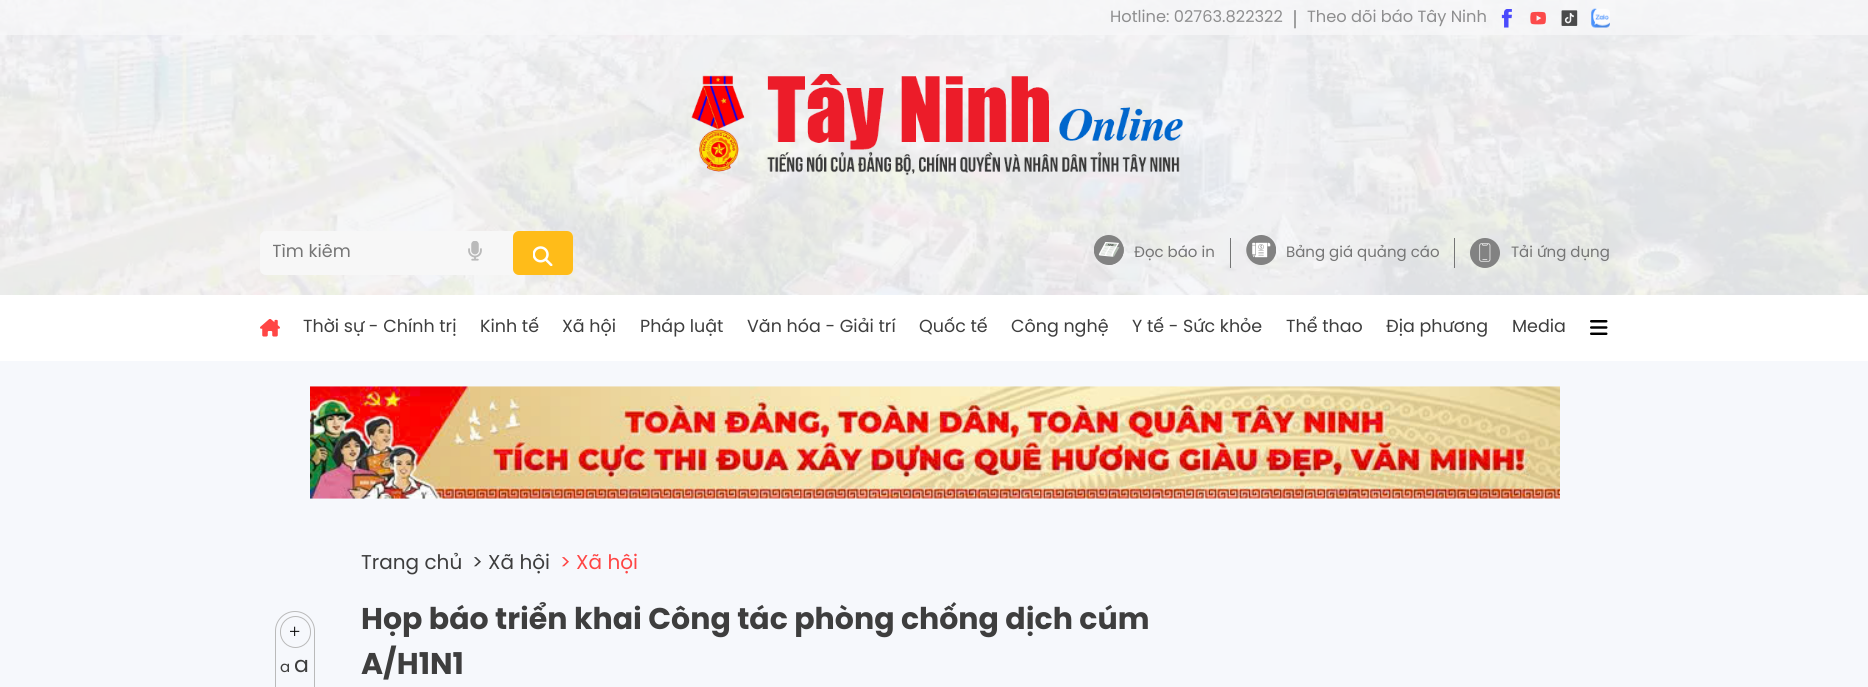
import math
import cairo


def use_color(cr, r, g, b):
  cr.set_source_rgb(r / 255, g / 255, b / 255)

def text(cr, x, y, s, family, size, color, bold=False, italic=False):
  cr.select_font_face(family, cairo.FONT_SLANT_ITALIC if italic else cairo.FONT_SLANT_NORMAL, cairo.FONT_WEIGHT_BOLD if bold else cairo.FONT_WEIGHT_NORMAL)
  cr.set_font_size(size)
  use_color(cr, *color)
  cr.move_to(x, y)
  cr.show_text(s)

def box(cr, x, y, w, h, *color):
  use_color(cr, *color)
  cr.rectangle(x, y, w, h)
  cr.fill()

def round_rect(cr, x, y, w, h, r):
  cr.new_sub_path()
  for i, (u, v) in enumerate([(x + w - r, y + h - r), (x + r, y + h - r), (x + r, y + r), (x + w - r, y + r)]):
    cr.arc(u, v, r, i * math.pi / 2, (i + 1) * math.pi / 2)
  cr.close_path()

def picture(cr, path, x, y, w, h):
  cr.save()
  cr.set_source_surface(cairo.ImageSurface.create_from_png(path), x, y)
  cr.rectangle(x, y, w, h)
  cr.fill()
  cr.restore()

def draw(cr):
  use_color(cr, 246, 248, 252)
  cr.paint()
  picture(cr, "img_01.png", 0, 0, 1868, 295)
  cr.set_source_rgba(0.973, 0.976, 0.98, 0.7)
  cr.rectangle(0, 0, 1868, 35)
  cr.fill()
  picture(cr, "img_02.png", 1501, 9, 11, 19)
  picture(cr, "img_03.png", 1530, 11, 16, 14)
  picture(cr, "img_04.png", 1561, 10, 17, 16)
  picture(cr, "img_05.png", 1591, 8, 19, 20)
  picture(cr, "img_06.png", 691, 74, 492, 102)
  use_color(cr, 247, 247, 247)
  round_rect(cr, 260, 231, 313, 44, 6)
  cr.fill()
  picture(cr, "img_07.png", 468, 241, 14, 20)
  use_color(cr, 255, 188, 25)
  round_rect(cr, 513, 231, 60, 44, 6)
  cr.fill()
  picture(cr, "img_08.png", 533, 246, 20, 20)
  picture(cr, "img_09.png", 1094, 235, 30, 30)
  box(cr, 1230, 238, 1, 30, 117, 117, 117)
  picture(cr, "img_10.png", 1246, 235, 30, 30)
  box(cr, 1454, 238, 1, 30, 117, 117, 117)
  use_color(cr, 130, 130, 130)
  cr.arc(1485, 253, 15, 0, 2 * math.pi)
  cr.fill()
  picture(cr, "img_11.png", 1479, 243, 12, 19)
  box(cr, 0, 295, 1868, 66, 255, 255, 255)
  picture(cr, "img_12.png", 260, 319, 20, 18)
  picture(cr, "img_13.png", 1590, 320, 18, 15)
  picture(cr, "img_14.png", 310, 386, 1250, 113)
  round_rect(cr, 275.5, 611.5, 39, 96, 19.5)
  use_color(cr, 186, 186, 186)
  cr.set_line_width(1)
  cr.stroke()
  round_rect(cr, 280.5, 616.5, 30, 31, 15)
  cr.stroke()
  text(cr, 1110, 22, "Hotline: 02763.822322", "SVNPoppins", 16.25, (142, 142, 143))
  text(cr, 1293, 24, "|", "Liberation Serif", 20, (74, 74, 74))
  text(cr, 1307, 22, "Theo dõi báo Tây Ninh", "SVNPoppins", 16.25, (142, 142, 143))
  cr.save()
  cr.rectangle(273, 244, 175, 19)
  cr.clip()
  text(cr, 272, 257, "Tìm kiếm", "SVNPoppins", 17.5, (117, 117, 117))
  cr.restore()
  text(cr, 1134, 257, "Đọc báo in", "SVNPoppins", 15, (117, 117, 117))
  text(cr, 1286, 257, "Bảng giá quảng cáo", "SVNPoppins", 15, (117, 117, 117))
  text(cr, 1511, 257, "Tải ứng dụng", "SVNPoppins", 15, (117, 117, 117))
  text(cr, 303, 332, "Thời sự - Chính trị", "SVNPoppins", 17.5, (62, 62, 62))
  text(cr, 480, 332, "Kinh tế", "SVNPoppins", 17.5, (62, 62, 62))
  text(cr, 562, 332, "Xã hội", "SVNPoppins", 17.5, (62, 62, 62))
  text(cr, 640, 332, "Pháp luật", "SVNPoppins", 17.5, (62, 62, 62))
  text(cr, 747, 332, "Văn hóa - Giải trí", "SVNPoppins", 17.5, (62, 62, 62))
  text(cr, 919, 332, "Quốc tế", "SVNPoppins", 17.5, (62, 62, 62))
  text(cr, 1011, 332, "Công nghệ", "SVNPoppins", 17.5, (62, 62, 62))
  text(cr, 1132, 332, "Y tế - Sức khỏe", "SVNPoppins", 17.5, (62, 62, 62))
  text(cr, 1286, 332, "Thể thao", "SVNPoppins", 17.5, (62, 62, 62))
  text(cr, 1386, 332, "Địa phương", "SVNPoppins", 17.5, (62, 62, 62))
  text(cr, 1512, 332, "Media", "SVNPoppins", 17.5, (62, 62, 62))
  text(cr, 289, 638, "+", "Liberation Serif", 20, (0, 0, 0))
  text(cr, 280, 672, "a", "SVNPoppins", 15, (62, 62, 62))
  text(cr, 294, 672, "a", "SVNPoppins", 22, (62, 62, 62))
  text(cr, 361, 569, "Trang chủ", "SVNPoppins", 20, (62, 62, 62))
  text(cr, 472, 569, "> Xã hội", "SVNPoppins", 20, (62, 62, 62))
  text(cr, 560, 569, "> Xã hội", "SVNPoppins", 20, (255, 70, 69))
  text(cr, 361, 629, "Họp báo triển khai Công tác phòng chống dịch cúm", "SVNPoppins", 30, (62, 62, 62), bold=True)
  text(cr, 361, 674, "A/H1N1", "SVNPoppins", 30, (62, 62, 62), bold=True)


surface = cairo.ImageSurface(cairo.FORMAT_RGB24, 1868, 687)
cr = cairo.Context(surface)
options = cairo.FontOptions()
options.set_hint_metrics(cairo.HINT_METRICS_OFF)
options.set_hint_style(cairo.HINT_STYLE_NONE)
cr.set_font_options(options)
cr.set_miter_limit(4)
draw(cr)
surface.write_to_png("out.png")
